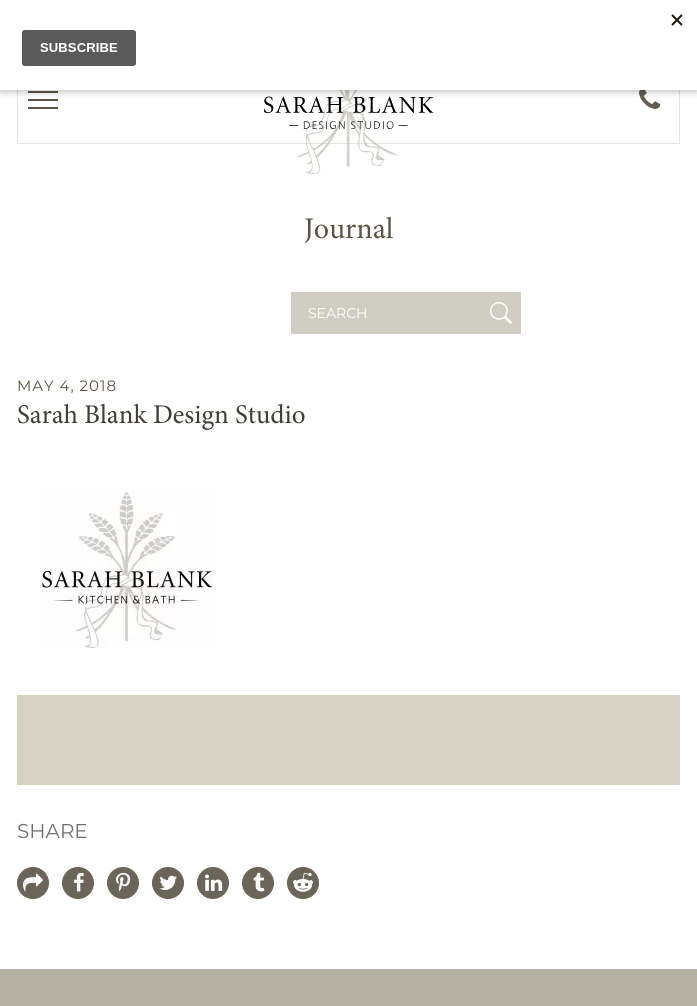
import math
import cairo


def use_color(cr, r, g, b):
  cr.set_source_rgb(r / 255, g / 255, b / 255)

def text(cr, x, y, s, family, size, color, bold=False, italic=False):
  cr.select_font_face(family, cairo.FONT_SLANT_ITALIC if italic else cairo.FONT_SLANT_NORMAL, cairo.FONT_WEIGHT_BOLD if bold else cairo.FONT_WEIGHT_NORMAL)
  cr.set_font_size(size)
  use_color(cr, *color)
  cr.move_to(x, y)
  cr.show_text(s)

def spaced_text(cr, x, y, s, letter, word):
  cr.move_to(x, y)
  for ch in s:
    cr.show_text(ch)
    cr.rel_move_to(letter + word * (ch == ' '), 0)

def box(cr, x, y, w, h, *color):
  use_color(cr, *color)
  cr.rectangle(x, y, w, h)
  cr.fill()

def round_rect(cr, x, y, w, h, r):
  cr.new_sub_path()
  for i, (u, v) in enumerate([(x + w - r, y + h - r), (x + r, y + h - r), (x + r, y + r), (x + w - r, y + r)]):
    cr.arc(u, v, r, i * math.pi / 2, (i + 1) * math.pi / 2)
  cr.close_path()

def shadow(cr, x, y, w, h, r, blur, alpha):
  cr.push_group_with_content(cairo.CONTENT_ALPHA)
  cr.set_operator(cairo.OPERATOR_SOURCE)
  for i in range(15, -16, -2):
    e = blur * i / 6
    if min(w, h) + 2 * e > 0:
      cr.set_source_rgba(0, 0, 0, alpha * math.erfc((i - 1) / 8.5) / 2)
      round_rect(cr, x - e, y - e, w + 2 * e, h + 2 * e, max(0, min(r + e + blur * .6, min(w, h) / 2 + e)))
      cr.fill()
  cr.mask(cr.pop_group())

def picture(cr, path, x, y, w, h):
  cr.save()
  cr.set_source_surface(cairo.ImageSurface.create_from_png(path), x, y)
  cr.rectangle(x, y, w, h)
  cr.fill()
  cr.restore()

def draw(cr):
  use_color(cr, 255, 255, 255)
  cr.paint()
  cr.rectangle(17.5, 55.5, 662, 88)
  use_color(cr, 230, 228, 224)
  cr.set_line_width(1)
  cr.stroke()
  box(cr, 28, 91, 30, 2, 90, 84, 70)
  box(cr, 28, 99, 30, 2, 90, 84, 70)
  picture(cr, "img_02.png", 264, 90, 170, 84)
  picture(cr, "img_03.png", 639, 90, 22, 19)
  use_color(cr, 0, 0, 0)
  shadow(cr, 0, 3, 697, 90, 0, 3, 0.2)
  box(cr, 0, 0, 697, 90, 255, 255, 255)
  picture(cr, "img_01.png", 22, 14, 661, 52)
  box(cr, 28, 107, 30, 2, 90, 84, 70)
  box(cr, 291, 292, 230, 42, 207, 205, 196)
  picture(cr, "img_04.png", 490, 302, 22, 22)
  picture(cr, "img_05.png", 41, 492, 172, 156)
  box(cr, 17, 695, 663, 90, 214, 211, 196)
  use_color(cr, 106, 101, 88)
  cr.arc(33, 883, 15.5, 0, 2 * math.pi)
  cr.fill_preserve()
  cr.stroke()
  picture(cr, "img_06.png", 23, 873, 20, 19)
  cr.arc(78, 883, 15.5, 0, 2 * math.pi)
  cr.fill_preserve()
  cr.stroke()
  picture(cr, "img_07.png", 74, 872, 10, 20)
  cr.arc(123, 883, 15.5, 0, 2 * math.pi)
  cr.fill_preserve()
  cr.stroke()
  picture(cr, "img_08.png", 116, 872, 15, 20)
  cr.arc(168, 883, 15.5, 0, 2 * math.pi)
  cr.fill_preserve()
  cr.stroke()
  picture(cr, "img_09.png", 159, 875, 18, 15)
  cr.arc(213, 883, 15.5, 0, 2 * math.pi)
  cr.fill_preserve()
  cr.stroke()
  picture(cr, "img_10.png", 205, 874, 18, 17)
  cr.arc(258, 883, 15.5, 0, 2 * math.pi)
  cr.fill_preserve()
  cr.stroke()
  picture(cr, "img_11.png", 253, 872, 12, 20)
  cr.arc(303, 883, 15.5, 0, 2 * math.pi)
  cr.fill_preserve()
  cr.stroke()
  picture(cr, "img_12.png", 293, 872, 20, 20)
  box(cr, 0, 969, 697, 37, 180, 177, 163)
  text(cr, 304, 238, "Journal", "Minion", 30, (90, 84, 70))
  text(cr, 308, 318, "SEARCH", "Montserrat", 14, (255, 255, 255))
  cr.set_font_size(15)
  use_color(cr, 90, 84, 70)
  spaced_text(cr, 17, 391, "MAY 4, 2018", 1, 0)
  text(cr, 17, 423, "Sarah Blank Design Studio", "Minion", 27, (65, 62, 54))
  text(cr, 17, 838, "SHARE", "Montserrat", 20, (112, 112, 112))


surface = cairo.ImageSurface(cairo.FORMAT_RGB24, 697, 1006)
cr = cairo.Context(surface)
options = cairo.FontOptions()
options.set_hint_metrics(cairo.HINT_METRICS_OFF)
options.set_hint_style(cairo.HINT_STYLE_NONE)
cr.set_font_options(options)
cr.set_miter_limit(4)
draw(cr)
surface.write_to_png("out.png")
